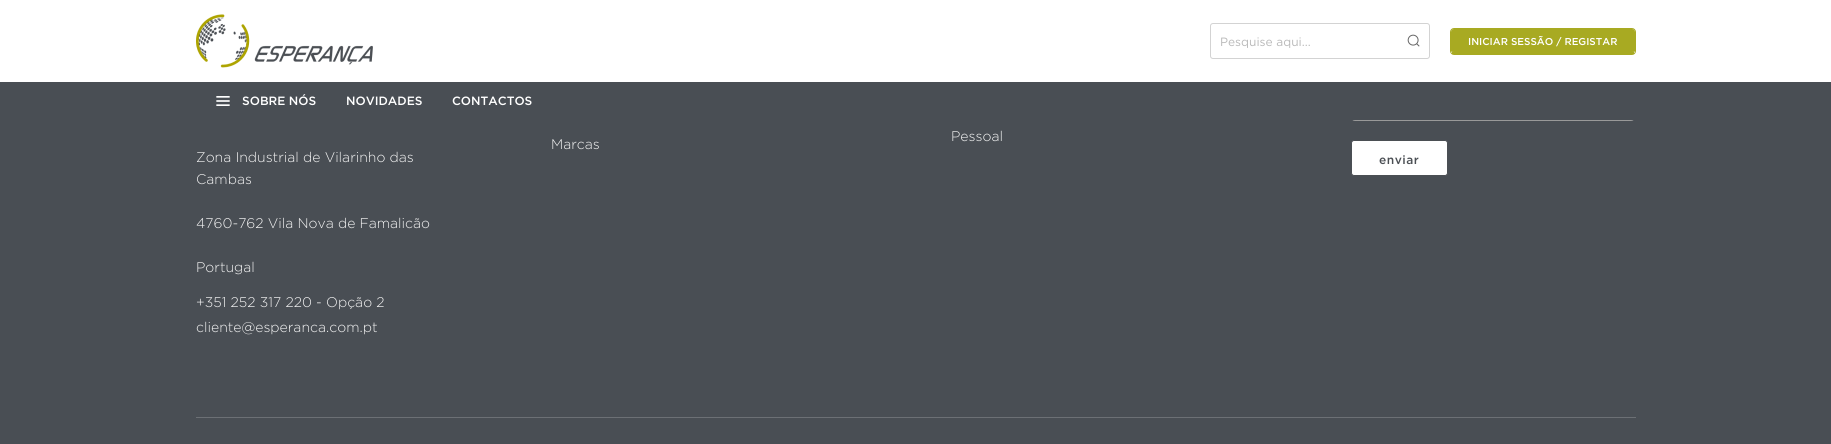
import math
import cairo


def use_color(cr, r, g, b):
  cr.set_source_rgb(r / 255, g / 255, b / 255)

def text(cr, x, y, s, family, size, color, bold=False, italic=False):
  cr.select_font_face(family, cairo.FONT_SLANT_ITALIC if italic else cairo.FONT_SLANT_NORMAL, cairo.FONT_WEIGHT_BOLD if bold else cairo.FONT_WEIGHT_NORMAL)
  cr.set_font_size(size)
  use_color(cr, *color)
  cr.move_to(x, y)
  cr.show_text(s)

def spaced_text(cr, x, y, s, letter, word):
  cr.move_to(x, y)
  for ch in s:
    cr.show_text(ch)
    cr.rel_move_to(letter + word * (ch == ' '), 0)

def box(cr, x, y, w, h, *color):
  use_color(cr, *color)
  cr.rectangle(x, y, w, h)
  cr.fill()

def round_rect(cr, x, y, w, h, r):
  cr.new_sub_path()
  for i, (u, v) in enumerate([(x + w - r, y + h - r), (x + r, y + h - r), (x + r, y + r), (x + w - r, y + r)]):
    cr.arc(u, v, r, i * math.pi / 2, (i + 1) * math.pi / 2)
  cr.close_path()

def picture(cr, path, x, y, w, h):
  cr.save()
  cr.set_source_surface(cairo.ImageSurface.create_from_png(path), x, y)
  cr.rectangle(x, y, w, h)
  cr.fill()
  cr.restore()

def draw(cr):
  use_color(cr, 73, 78, 84)
  cr.paint()
  round_rect(cr, 1351.5, 15.5, 283, 105, 3.5)
  use_color(cr, 153, 153, 153)
  cr.set_line_width(1)
  cr.stroke()
  box(cr, 0, 0, 1831, 82, 255, 255, 255)
  picture(cr, "img_01.png", 196, 14, 177, 54)
  round_rect(cr, 1210.5, 23.5, 219, 35, 2.5)
  use_color(cr, 211, 211, 211)
  cr.stroke()
  picture(cr, "img_02.png", 1407, 34, 13, 13)
  use_color(cr, 168, 170, 34)
  cr.new_path()
  cr.move_to(1454, 29)
  cr.line_to(1632, 29)
  cr.curve_to(1634, 29, 1635, 30, 1635, 32)
  cr.line_to(1635, 51)
  cr.curve_to(1635, 52, 1634, 52, 1632, 52)
  cr.line_to(1454, 52)
  cr.curve_to(1452, 52, 1451, 52, 1451, 51)
  cr.line_to(1451, 32)
  cr.curve_to(1451, 30, 1452, 29, 1454, 29)
  cr.close_path()
  cr.fill()
  round_rect(cr, 1450.5, 28.5, 185, 26, 3.5)
  cr.stroke()
  box(cr, 1452, 52, 182, 2, 168, 170, 34)
  box(cr, 1351, 82, 284, 38, 73, 78, 84)
  picture(cr, "img_03.png", 216, 96, 14, 10)
  use_color(cr, 255, 255, 255)
  round_rect(cr, 1351.5, 140.5, 96, 35, 2.5)
  cr.fill_preserve()
  use_color(cr, 75, 79, 84)
  cr.stroke()
  box(cr, 196, 417, 1440, 1, 108, 112, 117)
  text(cr, 1220, 46, "Pesquise aqui...", "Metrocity", 12, (184, 184, 184))
  text(cr, 1468, 45, "INICIAR SESSÃO / REGISTAR", "Metrocity Medium", 10, (255, 255, 255))
  text(cr, 242, 105, "SOBRE NÓS", "Metrocity Medium", 12, (255, 255, 255))
  text(cr, 346, 105, "NOVIDADES", "Metrocity Medium", 12, (255, 255, 255))
  text(cr, 452, 105, "CONTACTOS", "Metrocity Medium", 12, (255, 255, 255))
  text(cr, 951, 141, "Pessoal", "Metrocity Light", 14, (244, 244, 244))
  text(cr, 551, 149, "Marcas", "Metrocity Light", 14, (244, 244, 244))
  text(cr, 196, 162, "Zona Industrial de Vilarinho das", "Metrocity Light", 14, (244, 244, 244))
  text(cr, 196, 184, "Cambas", "Metrocity Light", 14, (244, 244, 244))
  text(cr, 196, 228, "4760-762 Vila Nova de Famalicão", "Metrocity Light", 14, (244, 244, 244))
  text(cr, 196, 272, "Portugal", "Metrocity Light", 14, (244, 244, 244))
  text(cr, 196, 307, "+351 252 317 220 - Opção 2", "Metrocity Light", 14, (244, 244, 244))
  text(cr, 196, 332, "cliente@esperanca.com.pt", "Metrocity Light", 14, (244, 244, 244))
  cr.select_font_face("Metrocity Medium")
  cr.set_font_size(12)
  use_color(cr, 75, 79, 84)
  spaced_text(cr, 1379, 164, "enviar", 0.5, 0)


surface = cairo.ImageSurface(cairo.FORMAT_RGB24, 1831, 444)
cr = cairo.Context(surface)
options = cairo.FontOptions()
options.set_hint_metrics(cairo.HINT_METRICS_OFF)
options.set_hint_style(cairo.HINT_STYLE_NONE)
cr.set_font_options(options)
cr.set_miter_limit(4)
draw(cr)
surface.write_to_png("out.png")
